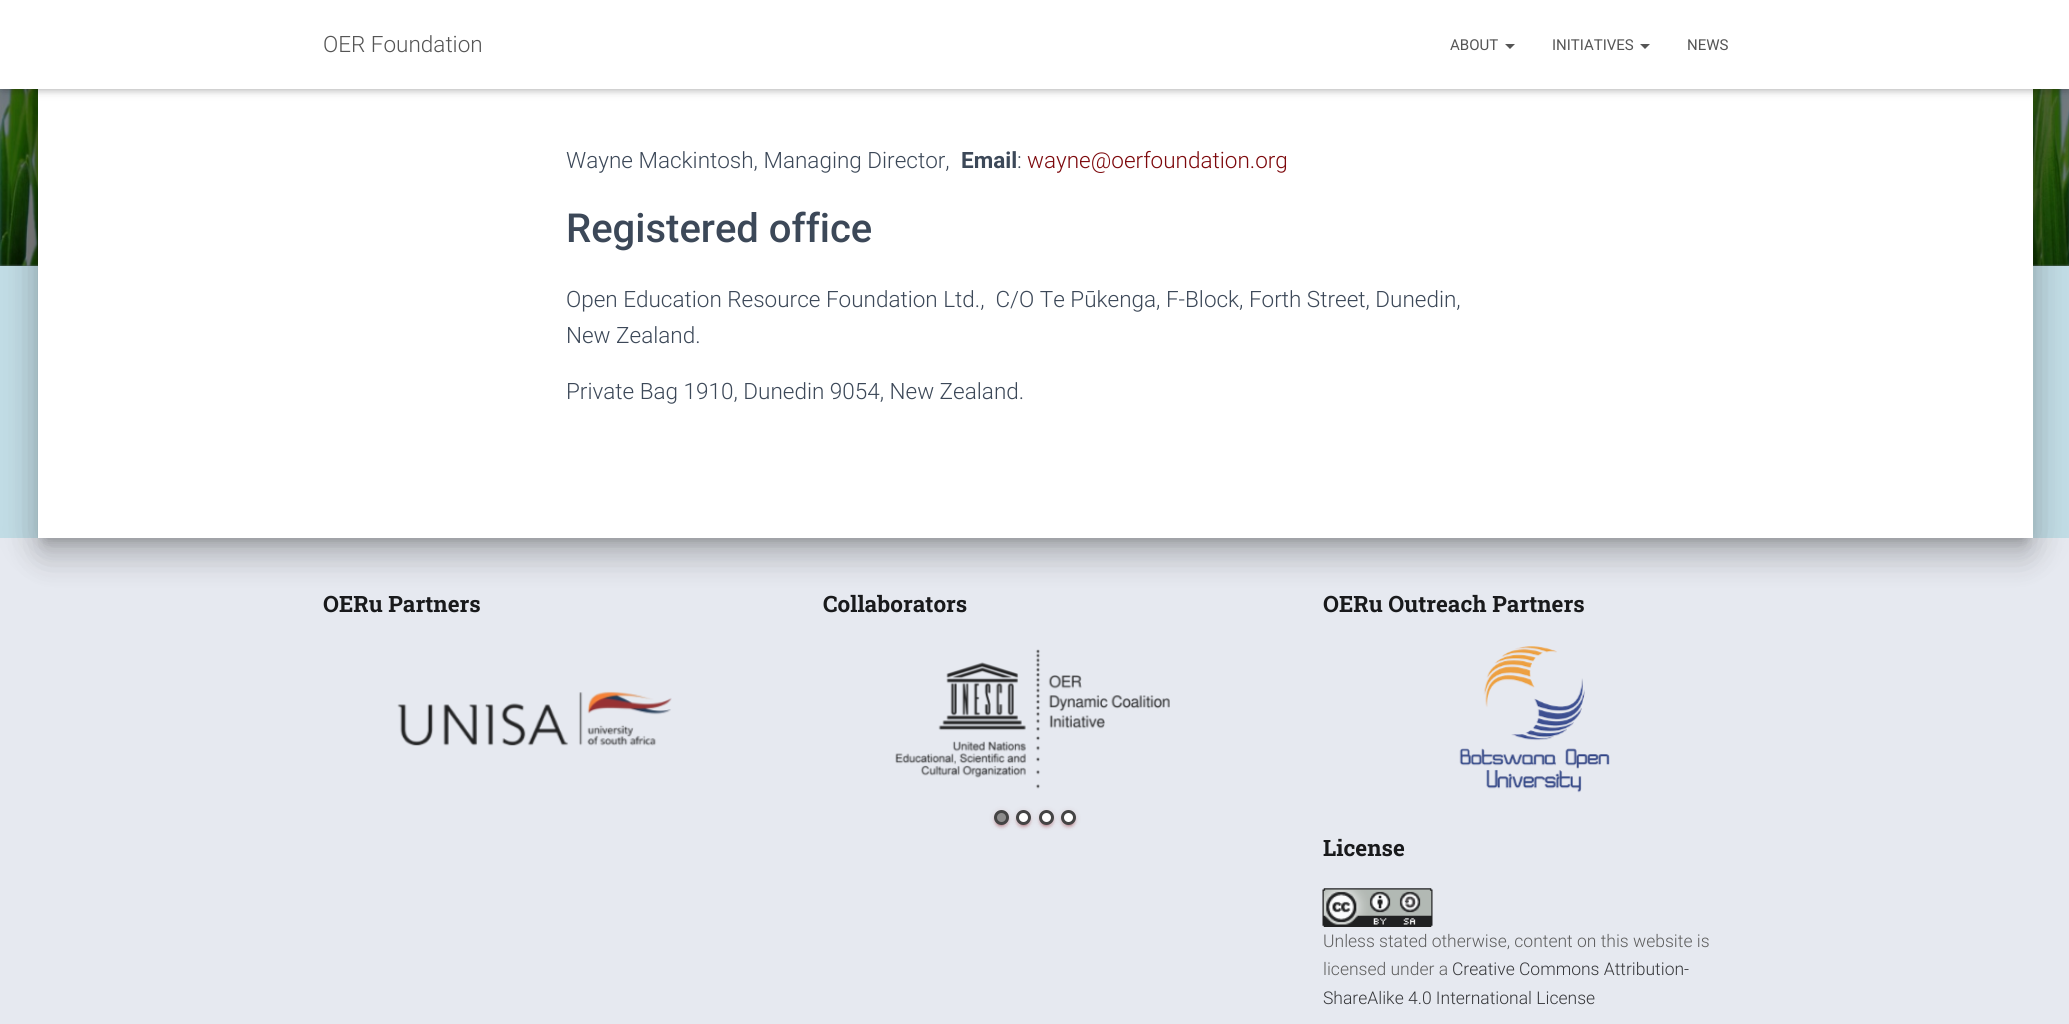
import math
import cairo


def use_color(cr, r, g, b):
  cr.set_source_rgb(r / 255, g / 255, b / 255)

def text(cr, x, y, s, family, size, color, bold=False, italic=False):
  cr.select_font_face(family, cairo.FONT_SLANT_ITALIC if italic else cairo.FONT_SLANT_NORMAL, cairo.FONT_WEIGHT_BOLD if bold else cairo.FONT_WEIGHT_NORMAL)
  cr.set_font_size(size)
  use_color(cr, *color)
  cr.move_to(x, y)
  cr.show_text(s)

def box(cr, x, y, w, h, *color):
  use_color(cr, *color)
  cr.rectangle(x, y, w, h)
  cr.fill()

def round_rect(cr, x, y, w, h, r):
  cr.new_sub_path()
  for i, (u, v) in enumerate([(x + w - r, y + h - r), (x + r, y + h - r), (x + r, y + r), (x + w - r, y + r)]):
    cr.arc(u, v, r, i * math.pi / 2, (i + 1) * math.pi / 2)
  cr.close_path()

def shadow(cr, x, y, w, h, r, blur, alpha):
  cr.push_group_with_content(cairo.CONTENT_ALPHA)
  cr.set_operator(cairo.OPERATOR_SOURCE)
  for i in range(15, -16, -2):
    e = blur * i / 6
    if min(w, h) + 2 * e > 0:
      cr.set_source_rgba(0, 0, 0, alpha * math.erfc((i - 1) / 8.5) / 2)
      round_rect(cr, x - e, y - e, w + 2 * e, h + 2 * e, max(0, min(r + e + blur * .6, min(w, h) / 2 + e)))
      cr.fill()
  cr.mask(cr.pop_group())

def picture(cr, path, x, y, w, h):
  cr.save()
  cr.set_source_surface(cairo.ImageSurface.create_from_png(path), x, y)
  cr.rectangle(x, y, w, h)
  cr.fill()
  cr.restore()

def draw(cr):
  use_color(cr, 194, 221, 230)
  cr.paint()
  box(cr, 0, 264, 2069, 2, 97, 111, 115)
  picture(cr, "img_01.png", 0, 89, 2069, 177)
  box(cr, 0, 538, 2069, 486, 230, 233, 240)
  use_color(cr, 0, 0, 0)
  shadow(cr, 44, 71, 1982, 470, 1, 6, 0.2)
  shadow(cr, 31, 56, 2008, 495, 14, 19, 0.12)
  shadow(cr, 35, 73, 2000, 487, 10, 15, 0.14)
  box(cr, 38, 89, 1995, 449, 255, 255, 255)
  use_color(cr, 0, 0, 0)
  shadow(cr, 3, 8, 2065, 83, 0, 3, 0.1)
  shadow(cr, 0, 1, 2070, 89, 0, 6, 0.12)
  shadow(cr, 8, 9, 2055, 74, 0, 6, 0.42)
  box(cr, 0, 0, 2069, 89, 255, 255, 255)
  use_color(cr, 85, 85, 85)
  cr.new_path()
  cr.move_to(1505, 44)
  cr.line_to(1515, 44)
  cr.line_to(1510, 49)
  cr.close_path()
  cr.fill()
  cr.new_path()
  cr.move_to(1640, 44)
  cr.line_to(1650, 44)
  cr.line_to(1645, 49)
  cr.close_path()
  cr.fill()
  picture(cr, "img_02.png", 397, 691, 275, 55)
  picture(cr, "img_03.png", 895, 649, 275, 140)
  use_color(cr, 125, 8, 12)
  shadow(cr, 994, 811, 15, 15, 7.5, 3, 0.12)
  shadow(cr, 996, 816, 10, 10, 5, 0.5, 0.2)
  shadow(cr, 994, 813, 15, 15, 7.5, 1, 0.14)
  use_color(cr, 141, 140, 140)
  cr.arc(1001.5, 817.5, 6, 0, 2 * math.pi)
  cr.fill_preserve()
  use_color(cr, 68, 68, 68)
  cr.set_line_width(3)
  cr.stroke()
  use_color(cr, 125, 8, 12)
  shadow(cr, 1016, 811, 15, 15, 7.5, 3, 0.12)
  shadow(cr, 1019, 816, 10, 10, 5, 0.5, 0.2)
  shadow(cr, 1016, 813, 15, 15, 7.5, 1, 0.14)
  use_color(cr, 255, 255, 255)
  cr.arc(1023.5, 817.5, 6, 0, 2 * math.pi)
  cr.fill_preserve()
  use_color(cr, 68, 68, 68)
  cr.stroke()
  use_color(cr, 125, 8, 12)
  shadow(cr, 1039, 811, 15, 15, 7.5, 3, 0.12)
  shadow(cr, 1041, 816, 10, 10, 5, 0.5, 0.2)
  shadow(cr, 1039, 813, 15, 15, 7.5, 1, 0.14)
  use_color(cr, 255, 255, 255)
  cr.arc(1046.5, 817.5, 6, 0, 2 * math.pi)
  cr.fill_preserve()
  use_color(cr, 68, 68, 68)
  cr.stroke()
  use_color(cr, 125, 8, 12)
  shadow(cr, 1061, 811, 15, 15, 7.5, 3, 0.12)
  shadow(cr, 1064, 816, 10, 10, 5, 0.5, 0.2)
  shadow(cr, 1061, 813, 15, 15, 7.5, 1, 0.14)
  use_color(cr, 255, 255, 255)
  cr.arc(1068.5, 817.5, 6, 0, 2 * math.pi)
  cr.fill_preserve()
  use_color(cr, 68, 68, 68)
  cr.stroke()
  picture(cr, "img_04.png", 1459, 646, 151, 147)
  picture(cr, "img_05.png", 1322, 888, 111, 39)
  text(cr, 323, 52, "OER Foundation", "Roboto Light", 22.5, (85, 85, 85))
  text(cr, 1450, 50, "ABOUT", "Roboto", 15, (85, 85, 85))
  text(cr, 1552, 50, "INITIATIVES", "Roboto", 15, (85, 85, 85))
  text(cr, 1687, 50, "NEWS", "Roboto", 15, (85, 85, 85))
  text(cr, 566, 168, "Wayne Mackintosh, Managing Director,", "Roboto Light", 22.5, (60, 72, 88))
  text(cr, 961, 168, "Email", "Roboto", 22.5, (60, 72, 88), bold=True)
  text(cr, 1017, 168, ":", "Roboto Light", 22.5, (60, 72, 88))
  text(cr, 1027, 168, "wayne@oerfoundation.org", "Roboto Light", 22.5, (125, 8, 12))
  text(cr, 566, 242, "Registered office", "Roboto Medium", 40, (60, 72, 88))
  text(cr, 566, 307, "Open Education Resource Foundation Ltd.,  C/O Te Pūkenga, F-Block, Forth Street, Dunedin,", "Roboto Light", 22.5, (60, 72, 88))
  text(cr, 566, 343, "New Zealand.", "Roboto Light", 22.5, (60, 72, 88))
  text(cr, 566, 399, "Private Bag 1910, Dunedin 9054, New Zealand.", "Roboto Light", 22.5, (60, 72, 88))
  text(cr, 323, 612, "OERu Partners", "Roboto Slab", 22.5, (25, 26, 28), bold=True)
  text(cr, 823, 612, "Collaborators", "Roboto Slab", 22.5, (25, 26, 28), bold=True)
  text(cr, 1323, 612, "OERu Outreach Partners", "Roboto Slab", 22.5, (25, 26, 28), bold=True)
  text(cr, 1323, 856, "License", "Roboto Slab", 22.5, (25, 26, 28), bold=True)
  text(cr, 1323, 947, "Unless stated otherwise, content on this website is", "Roboto Light", 17.5, (94, 94, 94))
  text(cr, 1323, 975, "licensed under a", "Roboto Light", 17.5, (94, 94, 94))
  text(cr, 1452, 975, "Creative Commons Attribution-", "Roboto Light", 17.5, (54, 55, 58))
  text(cr, 1323, 1004, "ShareAlike 4.0 International License", "Roboto Light", 17.5, (54, 55, 58))


surface = cairo.ImageSurface(cairo.FORMAT_RGB24, 2069, 1024)
cr = cairo.Context(surface)
options = cairo.FontOptions()
options.set_hint_metrics(cairo.HINT_METRICS_OFF)
options.set_hint_style(cairo.HINT_STYLE_NONE)
cr.set_font_options(options)
cr.set_miter_limit(4)
draw(cr)
surface.write_to_png("out.png")
